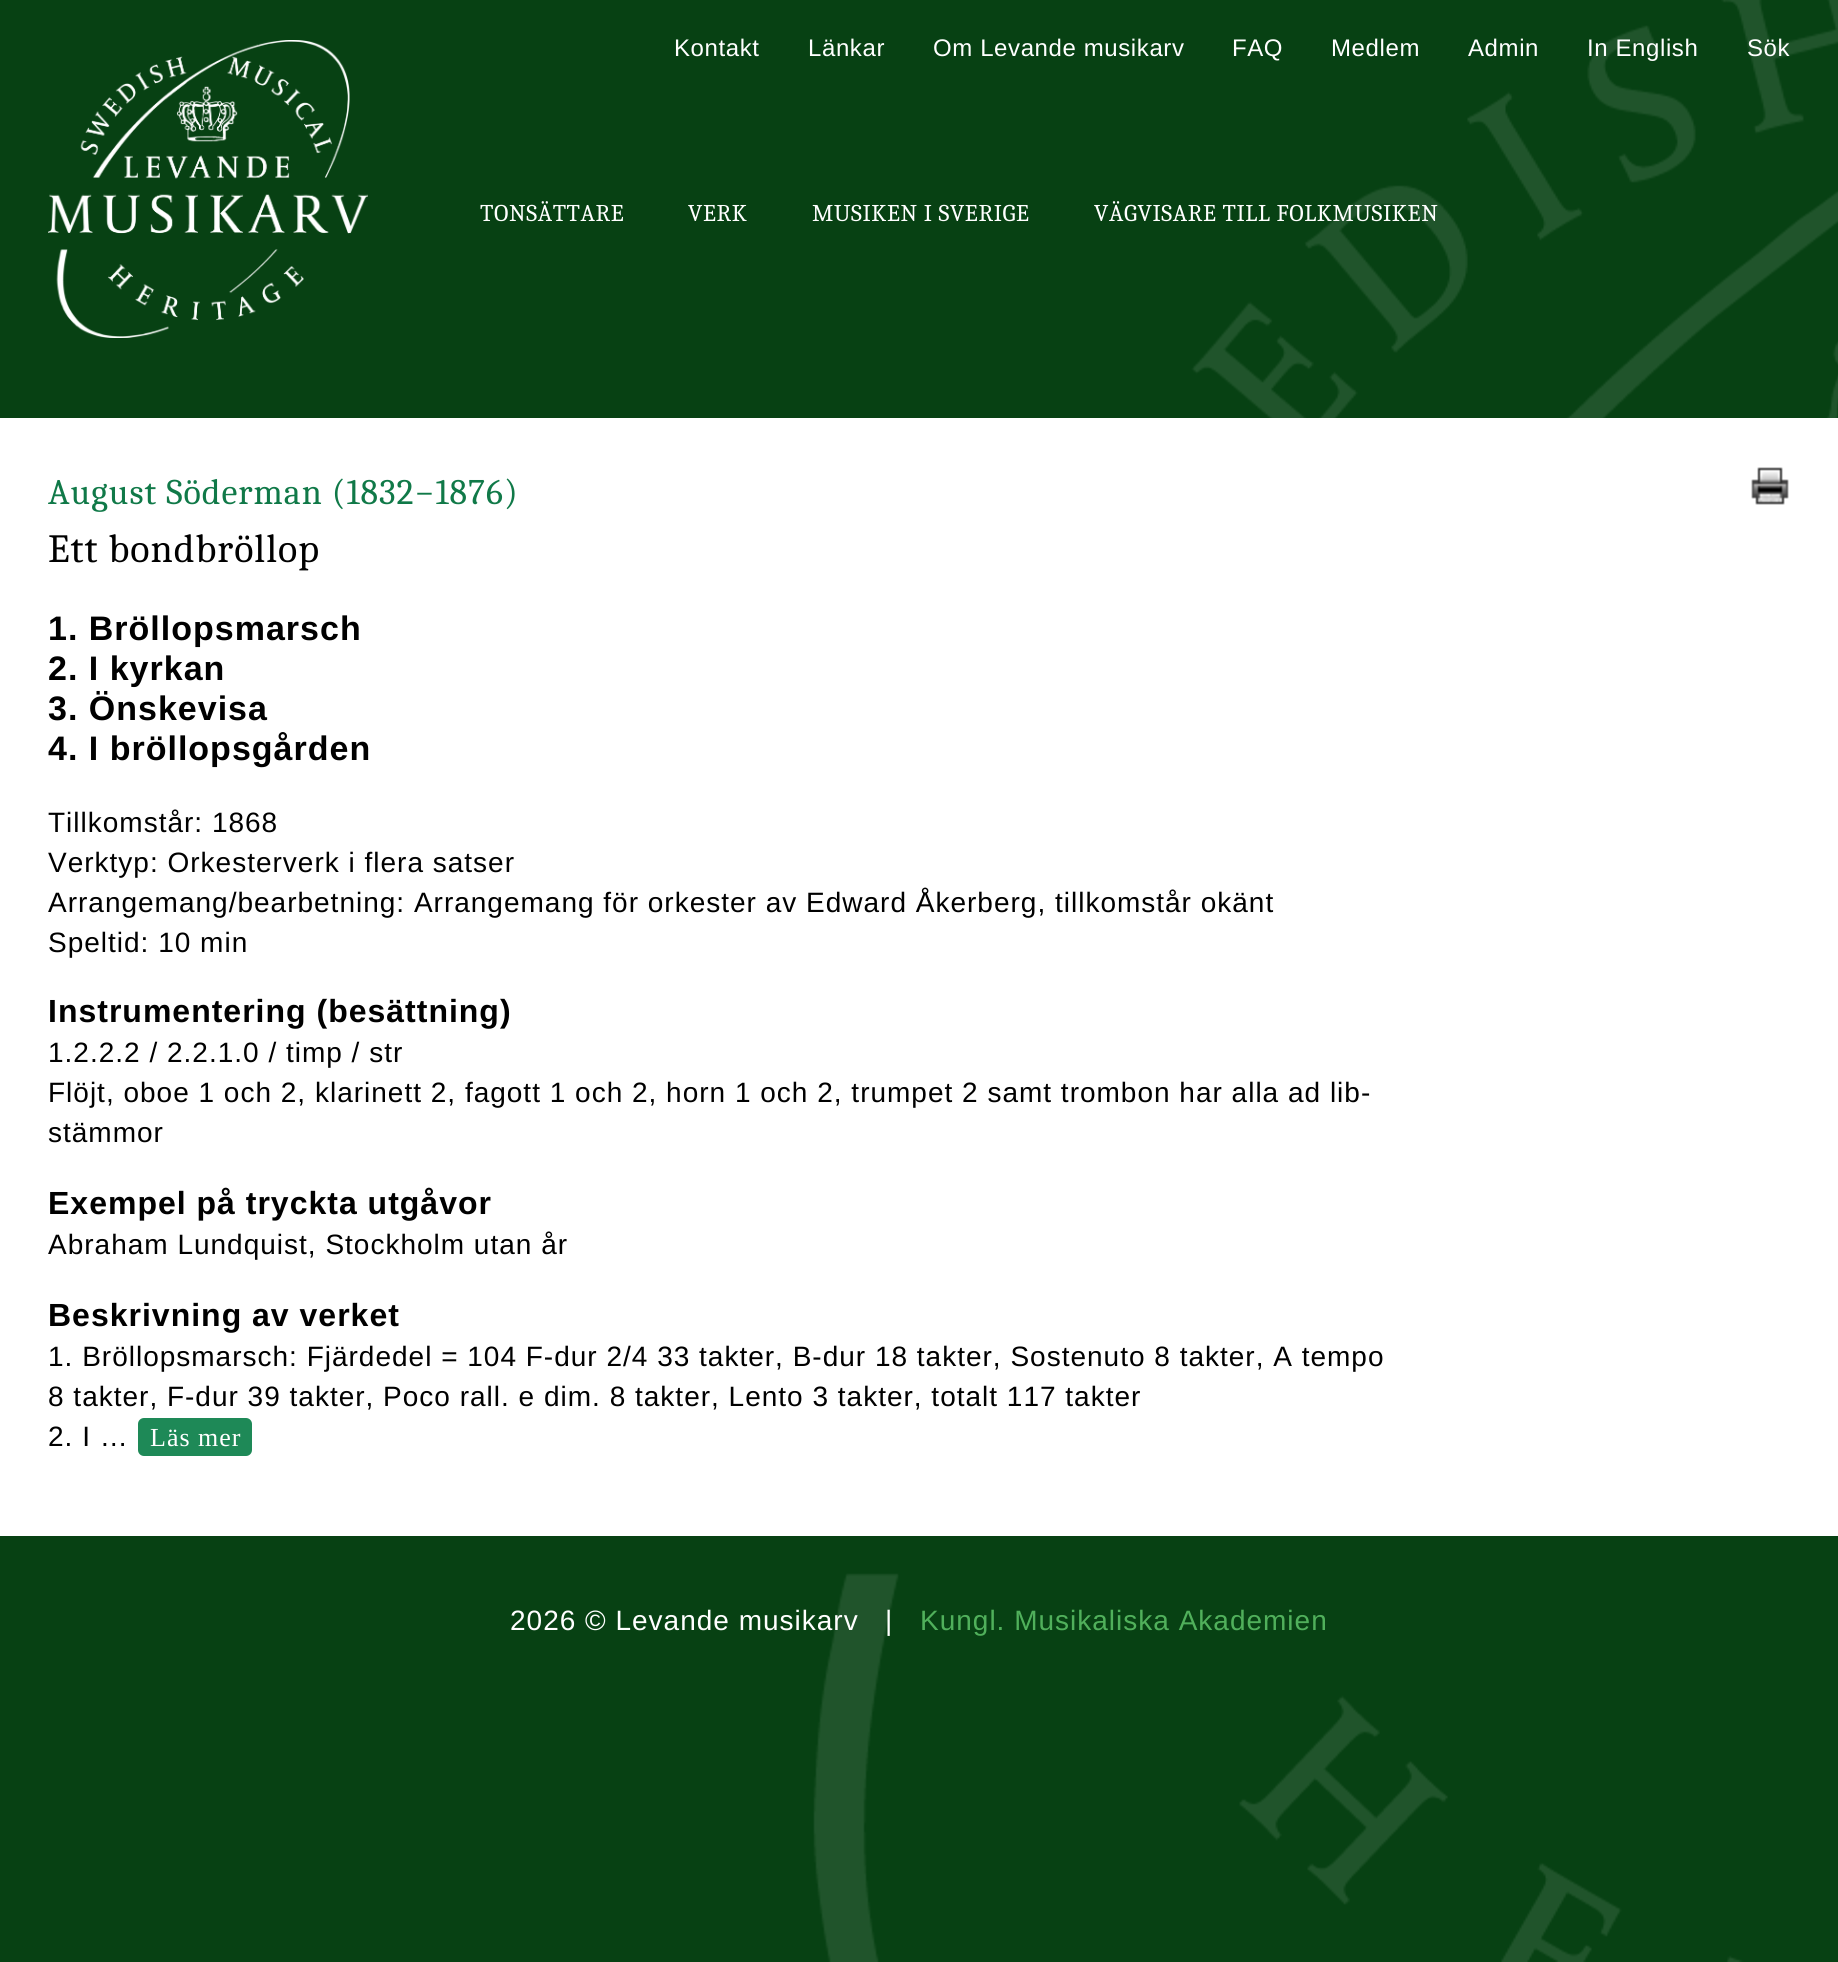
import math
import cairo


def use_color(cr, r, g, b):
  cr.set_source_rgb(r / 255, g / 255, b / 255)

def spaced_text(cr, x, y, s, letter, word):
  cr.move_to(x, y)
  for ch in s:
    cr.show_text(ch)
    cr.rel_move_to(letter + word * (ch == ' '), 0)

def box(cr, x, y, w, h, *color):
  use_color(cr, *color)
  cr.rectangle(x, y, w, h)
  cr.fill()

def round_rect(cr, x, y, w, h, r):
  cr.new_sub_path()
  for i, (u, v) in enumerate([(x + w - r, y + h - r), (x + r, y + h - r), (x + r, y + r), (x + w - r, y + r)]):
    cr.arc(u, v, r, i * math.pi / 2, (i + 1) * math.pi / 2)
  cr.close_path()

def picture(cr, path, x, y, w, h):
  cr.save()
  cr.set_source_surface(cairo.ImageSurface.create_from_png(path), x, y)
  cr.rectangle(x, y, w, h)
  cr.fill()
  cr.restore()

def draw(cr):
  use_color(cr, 7, 65, 19)
  cr.paint()
  picture(cr, "img_01.png", 813, 0, 1025, 1962)
  picture(cr, "img_02.png", 48, 40, 320, 298)
  box(cr, 0, 418, 1838, 1118, 255, 255, 255)
  picture(cr, "img_03.png", 1751, 467, 38, 38)
  use_color(cr, 30, 137, 87)
  round_rect(cr, 138, 1418, 114, 38, 6)
  cr.fill()
  cr.select_font_face("Liberation Sans")
  cr.set_font_size(24)
  use_color(cr, 255, 255, 255)
  spaced_text(cr, 674, 56, "Kontakt", 0.6, 0)
  spaced_text(cr, 808, 56, "Länkar", 0.6, 0)
  spaced_text(cr, 933, 56, "Om Levande musikarv", 0.6, 0)
  spaced_text(cr, 1232, 56, "FAQ", 0.6, 0)
  spaced_text(cr, 1331, 56, "Medlem", 0.6, 0)
  spaced_text(cr, 1468, 56, "Admin", 0.6, 0)
  spaced_text(cr, 1587, 56, "In English", 0.6, 0)
  spaced_text(cr, 1747, 56, "Sök", 0.6, 0)
  cr.select_font_face("Caladea")
  spaced_text(cr, 480, 221, "TONSÄTTARE", 0.6, 0)
  spaced_text(cr, 688, 221, "VERK", 0.6, 0)
  spaced_text(cr, 812, 221, "MUSIKEN I SVERIGE", 0.6, 0)
  spaced_text(cr, 1094, 221, "VÄGVISARE TILL FOLKMUSIKEN", 0.6, 0)
  cr.set_font_size(36)
  use_color(cr, 16, 121, 72)
  spaced_text(cr, 48, 504, "August Söderman (1832−1876)", 1, 0)
  cr.set_font_size(40)
  use_color(cr, 0, 0, 0)
  spaced_text(cr, 48, 562, "Ett bondbröllop", 1, 0)
  cr.select_font_face("Liberation Sans", cairo.FONT_SLANT_NORMAL, cairo.FONT_WEIGHT_BOLD)
  cr.set_font_size(34)
  spaced_text(cr, 48, 640, "1. Bröllopsmarsch", 1, 0)
  spaced_text(cr, 48, 680, "2. I kyrkan", 1, 0)
  spaced_text(cr, 48, 720, "3. Önskevisa", 1, 0)
  spaced_text(cr, 48, 760, "4. I bröllopsgården", 1, 0)
  cr.select_font_face("Liberation Sans")
  cr.set_font_size(28)
  spaced_text(cr, 48, 832, "Tillkomstår: 1868", 1, 0)
  spaced_text(cr, 48, 872, "Verktyp: Orkesterverk i flera satser", 1, 0)
  spaced_text(cr, 48, 912, "Arrangemang/bearbetning: Arrangemang för orkester av Edward Åkerberg, tillkomstår okänt", 1, 0)
  spaced_text(cr, 48, 952, "Speltid: 10 min", 1, 0)
  cr.select_font_face("Liberation Sans", cairo.FONT_SLANT_NORMAL, cairo.FONT_WEIGHT_BOLD)
  cr.set_font_size(32)
  spaced_text(cr, 48, 1022, "Instrumentering (besättning)", 1, 0)
  cr.select_font_face("Liberation Sans")
  cr.set_font_size(28)
  spaced_text(cr, 48, 1062, "1.2.2.2 / 2.2.1.0 / timp / str", 1, 0)
  spaced_text(cr, 48, 1102, "Flöjt, oboe 1 och 2, klarinett 2, fagott 1 och 2, horn 1 och 2, trumpet 2 samt trombon har alla ad lib-", 1, 0)
  spaced_text(cr, 48, 1142, "stämmor", 1, 0)
  cr.select_font_face("Liberation Sans", cairo.FONT_SLANT_NORMAL, cairo.FONT_WEIGHT_BOLD)
  cr.set_font_size(32)
  spaced_text(cr, 48, 1214, "Exempel på tryckta utgåvor", 1, 0)
  cr.select_font_face("Liberation Sans")
  cr.set_font_size(28)
  spaced_text(cr, 48, 1254, "Abraham Lundquist, Stockholm utan år", 1, 0)
  cr.select_font_face("Liberation Sans", cairo.FONT_SLANT_NORMAL, cairo.FONT_WEIGHT_BOLD)
  cr.set_font_size(32)
  spaced_text(cr, 48, 1326, "Beskrivning av verket", 1, 0)
  cr.select_font_face("Liberation Sans")
  cr.set_font_size(28)
  spaced_text(cr, 48, 1366, "1. Bröllopsmarsch: Fjärdedel = 104 F-dur 2/4 33 takter, B-dur 18 takter, Sostenuto 8 takter, A tempo", 1, 0)
  spaced_text(cr, 48, 1406, "8 takter, F-dur 39 takter, Poco rall. e dim. 8 takter, Lento 3 takter, totalt 117 takter", 1, 0)
  spaced_text(cr, 48, 1446, "2. I …", 1, 0)
  cr.select_font_face("Liberation Serif")
  cr.set_font_size(26)
  use_color(cr, 255, 255, 255)
  spaced_text(cr, 150, 1446, "Läs mer", 1, 0)
  cr.select_font_face("Liberation Sans")
  cr.set_font_size(28)
  spaced_text(cr, 510, 1630, "2026 © Levande musikarv", 1, 0)
  spaced_text(cr, 885, 1630, "|", 1, 0)
  use_color(cr, 80, 176, 91)
  spaced_text(cr, 920, 1630, "Kungl. Musikaliska Akademien", 1, 0)


surface = cairo.ImageSurface(cairo.FORMAT_RGB24, 1838, 1962)
cr = cairo.Context(surface)
options = cairo.FontOptions()
options.set_hint_metrics(cairo.HINT_METRICS_OFF)
options.set_hint_style(cairo.HINT_STYLE_NONE)
cr.set_font_options(options)
cr.set_miter_limit(4)
draw(cr)
surface.write_to_png("out.png")
